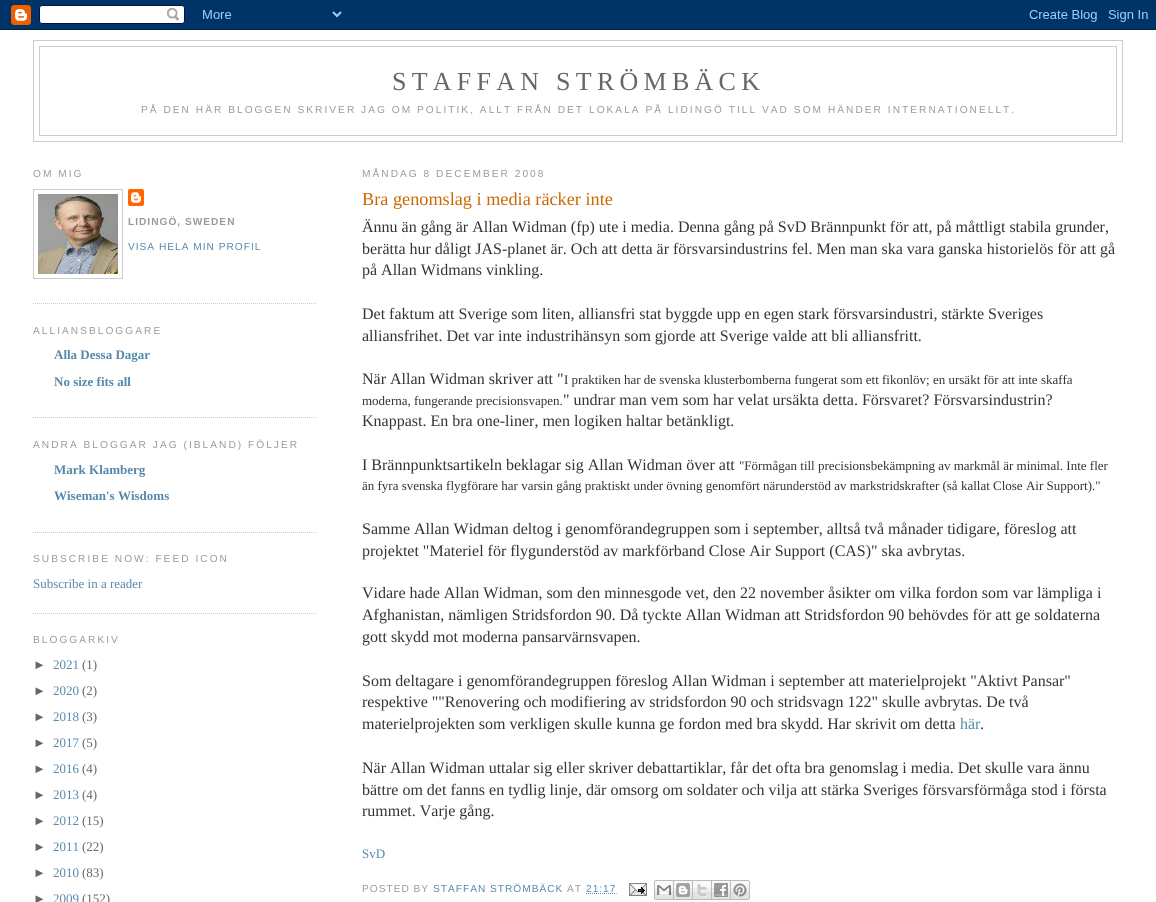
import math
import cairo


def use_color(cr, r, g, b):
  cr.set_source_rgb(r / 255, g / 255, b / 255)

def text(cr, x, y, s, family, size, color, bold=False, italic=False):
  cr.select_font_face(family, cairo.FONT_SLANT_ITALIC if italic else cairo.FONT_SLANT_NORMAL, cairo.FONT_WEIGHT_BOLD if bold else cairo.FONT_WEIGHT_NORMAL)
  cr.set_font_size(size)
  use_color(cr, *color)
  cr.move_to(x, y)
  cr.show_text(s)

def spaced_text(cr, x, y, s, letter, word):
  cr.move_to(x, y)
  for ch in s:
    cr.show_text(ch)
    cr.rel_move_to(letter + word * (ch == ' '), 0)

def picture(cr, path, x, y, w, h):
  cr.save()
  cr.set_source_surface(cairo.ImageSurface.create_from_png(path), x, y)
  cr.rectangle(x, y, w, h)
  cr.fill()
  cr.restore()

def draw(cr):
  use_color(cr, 255, 255, 255)
  cr.paint()
  picture(cr, "img_01.png", 0, 0, 1156, 30)
  cr.rectangle(33.5, 40.5, 1089, 101)
  use_color(cr, 204, 204, 204)
  cr.set_line_width(1)
  cr.stroke()
  cr.rectangle(39.5, 46.5, 1077, 89)
  cr.stroke()
  cr.new_path()
  cr.move_to(33, 303.5)
  cr.line_to(317, 303.5)
  cr.set_dash([1, 1])
  cr.stroke()
  cr.rectangle(33.5, 189.5, 89, 89)
  cr.set_dash([])
  cr.stroke()
  picture(cr, "img_02.png", 38, 194, 80, 80)
  picture(cr, "img_03.png", 128, 189, 16, 17)
  cr.new_path()
  cr.move_to(33, 417.5)
  cr.line_to(317, 417.5)
  cr.set_dash([1, 1])
  cr.stroke()
  cr.new_path()
  cr.move_to(33, 532.5)
  cr.line_to(317, 532.5)
  cr.stroke()
  cr.new_path()
  cr.move_to(33, 613.5)
  cr.line_to(317, 613.5)
  cr.stroke()
  cr.new_path()
  cr.move_to(586, 893.5)
  cr.line_to(616.5, 893.5)
  use_color(cr, 85, 136, 170)
  cr.stroke()
  picture(cr, "img_04.png", 629, 883, 18, 13)
  picture(cr, "img_05.png", 654, 880, 20, 20)
  picture(cr, "img_06.png", 674, 880, 19, 20)
  picture(cr, "img_07.png", 693, 880, 19, 20)
  picture(cr, "img_08.png", 712, 880, 19, 20)
  picture(cr, "img_09.png", 731, 880, 19, 20)
  cr.select_font_face("Liberation Serif")
  cr.set_font_size(26)
  use_color(cr, 102, 102, 102)
  spaced_text(cr, 392, 90, "STAFFAN STRÖMBÄCK", 5.25, 0)
  cr.select_font_face("Liberation Sans")
  cr.set_font_size(10.15)
  use_color(cr, 153, 153, 153)
  spaced_text(cr, 141, 113, "PÅ DEN HÄR BLOGGEN SKRIVER JAG OM POLITIK, ALLT FRÅN DET LOKALA PÅ LIDINGÖ TILL VAD SOM HÄNDER INTERNATIONELLT.", 2.03, 0)
  spaced_text(cr, 33, 177, "OM MIG", 2.03, 0)
  cr.select_font_face("Liberation Sans", cairo.FONT_SLANT_NORMAL, cairo.FONT_WEIGHT_BOLD)
  spaced_text(cr, 128, 225, "LIDINGÖ, SWEDEN", 1, 0)
  cr.select_font_face("Liberation Sans")
  use_color(cr, 85, 136, 170)
  spaced_text(cr, 128, 250, "VISA HELA MIN PROFIL", 1, 0)
  use_color(cr, 153, 153, 153)
  spaced_text(cr, 33, 334, "ALLIANSBLOGGARE", 2.03, 0)
  text(cr, 54, 359, "Alla Dessa Dagar", "Liberation Serif", 13, (85, 136, 170), bold=True)
  text(cr, 54, 386, "No size fits all", "Liberation Serif", 13, (85, 136, 170), bold=True)
  cr.select_font_face("Liberation Sans")
  cr.set_font_size(10.15)
  use_color(cr, 153, 153, 153)
  spaced_text(cr, 33, 448, "ANDRA BLOGGAR JAG (IBLAND) FÖLJER", 2.03, 0)
  text(cr, 54, 474, "Mark Klamberg", "Liberation Serif", 13, (85, 136, 170), bold=True)
  text(cr, 54, 500, "Wiseman's Wisdoms", "Liberation Serif", 13, (85, 136, 170), bold=True)
  cr.select_font_face("Liberation Sans")
  cr.set_font_size(10.15)
  use_color(cr, 153, 153, 153)
  spaced_text(cr, 33, 562, "SUBSCRIBE NOW: FEED ICON", 2.03, 0)
  text(cr, 33, 588, "Subscribe in a reader", "Liberation Serif", 13, (85, 136, 170))
  cr.select_font_face("Liberation Sans")
  cr.set_font_size(10.15)
  use_color(cr, 153, 153, 153)
  spaced_text(cr, 33, 643, "BLOGGARKIV", 2.03, 0)
  text(cr, 33, 669, "►", "Liberation Sans", 13, (102, 102, 102))
  text(cr, 53, 669, "2021", "Liberation Serif", 13, (85, 136, 170))
  text(cr, 82, 669, "(1)", "Liberation Serif", 13, (102, 102, 102))
  text(cr, 33, 695, "►", "Liberation Sans", 13, (102, 102, 102))
  text(cr, 53, 695, "2020", "Liberation Serif", 13, (85, 136, 170))
  text(cr, 82, 695, "(2)", "Liberation Serif", 13, (102, 102, 102))
  text(cr, 33, 721, "►", "Liberation Sans", 13, (102, 102, 102))
  text(cr, 53, 721, "2018", "Liberation Serif", 13, (85, 136, 170))
  text(cr, 82, 721, "(3)", "Liberation Serif", 13, (102, 102, 102))
  text(cr, 33, 747, "►", "Liberation Sans", 13, (102, 102, 102))
  text(cr, 53, 747, "2017", "Liberation Serif", 13, (85, 136, 170))
  text(cr, 82, 747, "(5)", "Liberation Serif", 13, (102, 102, 102))
  text(cr, 33, 773, "►", "Liberation Sans", 13, (102, 102, 102))
  text(cr, 53, 773, "2016", "Liberation Serif", 13, (85, 136, 170))
  text(cr, 82, 773, "(4)", "Liberation Serif", 13, (102, 102, 102))
  text(cr, 33, 799, "►", "Liberation Sans", 13, (102, 102, 102))
  text(cr, 53, 799, "2013", "Liberation Serif", 13, (85, 136, 170))
  text(cr, 82, 799, "(4)", "Liberation Serif", 13, (102, 102, 102))
  text(cr, 33, 825, "►", "Liberation Sans", 13, (102, 102, 102))
  text(cr, 53, 825, "2012", "Liberation Serif", 13, (85, 136, 170))
  text(cr, 82, 825, "(15)", "Liberation Serif", 13, (102, 102, 102))
  text(cr, 33, 851, "►", "Liberation Sans", 13, (102, 102, 102))
  text(cr, 53, 851, "2011", "Liberation Serif", 13, (85, 136, 170))
  text(cr, 82, 851, "(22)", "Liberation Serif", 13, (102, 102, 102))
  text(cr, 33, 877, "►", "Liberation Sans", 13, (102, 102, 102))
  text(cr, 53, 877, "2010", "Liberation Serif", 13, (85, 136, 170))
  text(cr, 82, 877, "(83)", "Liberation Serif", 13, (102, 102, 102))
  text(cr, 33, 903, "►", "Liberation Sans", 13, (102, 102, 102))
  text(cr, 53, 903, "2009", "Liberation Serif", 13, (85, 136, 170))
  text(cr, 82, 903, "(152)", "Liberation Serif", 13, (102, 102, 102))
  cr.select_font_face("Liberation Sans")
  cr.set_font_size(10.15)
  use_color(cr, 153, 153, 153)
  spaced_text(cr, 362, 177, "MÅNDAG 8 DECEMBER 2008", 2.03, 0)
  text(cr, 362, 205, "Bra genomslag i media räcker inte", "Liberation Serif", 18.25, (204, 102, 0))
  text(cr, 362, 232, "Ännu än gång är Allan Widman (fp) ute i media. Denna gång på SvD Brännpunkt för att, på måttligt stabila grunder,", "Liberation Serif", 16, (51, 51, 51))
  text(cr, 362, 254, "berätta hur dåligt JAS-planet är. Och att detta är försvarsindustrins fel. Men man ska vara ganska historielös för att gå", "Liberation Serif", 16, (51, 51, 51))
  text(cr, 362, 275, "på Allan Widmans vinkling.", "Liberation Serif", 16, (51, 51, 51))
  text(cr, 362, 319, "Det faktum att Sverige som liten, alliansfri stat byggde upp en egen stark försvarsindustri, stärkte Sveriges", "Liberation Serif", 16, (51, 51, 51))
  text(cr, 362, 341, "alliansfrihet. Det var inte industrihänsyn som gjorde att Sverige valde att bli alliansfritt.", "Liberation Serif", 16, (51, 51, 51))
  text(cr, 362, 384, "När Allan Widman skriver att \"", "Liberation Serif", 16, (51, 51, 51))
  text(cr, 564, 384, "I praktiken har de svenska klusterbomberna fungerat som ett fikonlöv; en ursäkt för att inte skaffa", "Liberation Serif", 13, (51, 51, 51))
  text(cr, 362, 405, "moderna, fungerande precisionsvapen.", "Liberation Serif", 13, (51, 51, 51))
  text(cr, 563, 405, "\" undrar man vem som har velat ursäkta detta. Försvaret? Försvarsindustrin?", "Liberation Serif", 16, (51, 51, 51))
  text(cr, 362, 426, "Knappast. En bra one-liner, men logiken haltar betänkligt.", "Liberation Serif", 16, (51, 51, 51))
  text(cr, 362, 470, "I Brännpunktsartikeln beklagar sig Allan Widman över att", "Liberation Serif", 16, (51, 51, 51))
  text(cr, 739, 470, "\"Förmågan till precisionsbekämpning av markmål är minimal. Inte fler", "Liberation Serif", 13, (51, 51, 51))
  text(cr, 362, 490, "än fyra svenska flygförare har varsin gång praktiskt under övning genomfört närunderstöd av markstridskrafter (så kallat Close Air Support).\"", "Liberation Serif", 13, (51, 51, 51))
  text(cr, 362, 534, "Samme Allan Widman deltog i genomförandegruppen som i september, alltså två månader tidigare, föreslog att", "Liberation Serif", 16, (51, 51, 51))
  text(cr, 362, 556, "projektet \"Materiel för flygunderstöd av markförband Close Air Support (CAS)\" ska avbrytas.", "Liberation Serif", 16, (51, 51, 51))
  text(cr, 362, 598, "Vidare hade Allan Widman, som den minnesgode vet, den 22 november åsikter om vilka fordon som var lämpliga i", "Liberation Serif", 16, (51, 51, 51))
  text(cr, 362, 620, "Afghanistan, nämligen Stridsfordon 90. Då tyckte Allan Widman att Stridsfordon 90 behövdes för att ge soldaterna", "Liberation Serif", 16, (51, 51, 51))
  text(cr, 362, 642, "gott skydd mot moderna pansarvärnsvapen.", "Liberation Serif", 16, (51, 51, 51))
  text(cr, 362, 686, "Som deltagare i genomförandegruppen föreslog Allan Widman i september att materielprojekt \"Aktivt Pansar\"", "Liberation Serif", 16, (51, 51, 51))
  text(cr, 362, 707, "respektive \"\"Renovering och modifiering av stridsfordon 90 och stridsvagn 122\" skulle avbrytas. De två", "Liberation Serif", 16, (51, 51, 51))
  text(cr, 362, 729, "materielprojekten som verkligen skulle kunna ge fordon med bra skydd. Har skrivit om detta", "Liberation Serif", 16, (51, 51, 51))
  text(cr, 960, 729, "här", "Liberation Serif", 16, (85, 136, 170))
  text(cr, 980, 729, ".", "Liberation Serif", 16, (51, 51, 51))
  text(cr, 362, 773, "När Allan Widman uttalar sig eller skriver debattartiklar, får det ofta bra genomslag i media. Det skulle vara ännu", "Liberation Serif", 16, (51, 51, 51))
  text(cr, 362, 795, "bättre om det fanns en tydlig linje, där omsorg om soldater och vilja att stärka Sveriges försvarsförmåga stod i första", "Liberation Serif", 16, (51, 51, 51))
  text(cr, 362, 816, "rummet. Varje gång.", "Liberation Serif", 16, (51, 51, 51))
  text(cr, 362, 858, "SvD", "Liberation Serif", 13, (85, 136, 170))
  cr.select_font_face("Liberation Sans")
  cr.set_font_size(10.15)
  use_color(cr, 153, 153, 153)
  spaced_text(cr, 362, 892, "POSTED BY", 1, 0)
  use_color(cr, 85, 136, 170)
  spaced_text(cr, 433, 892, "STAFFAN STRÖMBÄCK", 1, 0)
  use_color(cr, 153, 153, 153)
  spaced_text(cr, 567, 892, "AT", 1, 0)
  use_color(cr, 85, 136, 170)
  spaced_text(cr, 586, 892, "21:17", 1, 0)


surface = cairo.ImageSurface(cairo.FORMAT_RGB24, 1156, 902)
cr = cairo.Context(surface)
options = cairo.FontOptions()
options.set_hint_metrics(cairo.HINT_METRICS_OFF)
options.set_hint_style(cairo.HINT_STYLE_NONE)
cr.set_font_options(options)
cr.set_miter_limit(4)
draw(cr)
surface.write_to_png("out.png")
